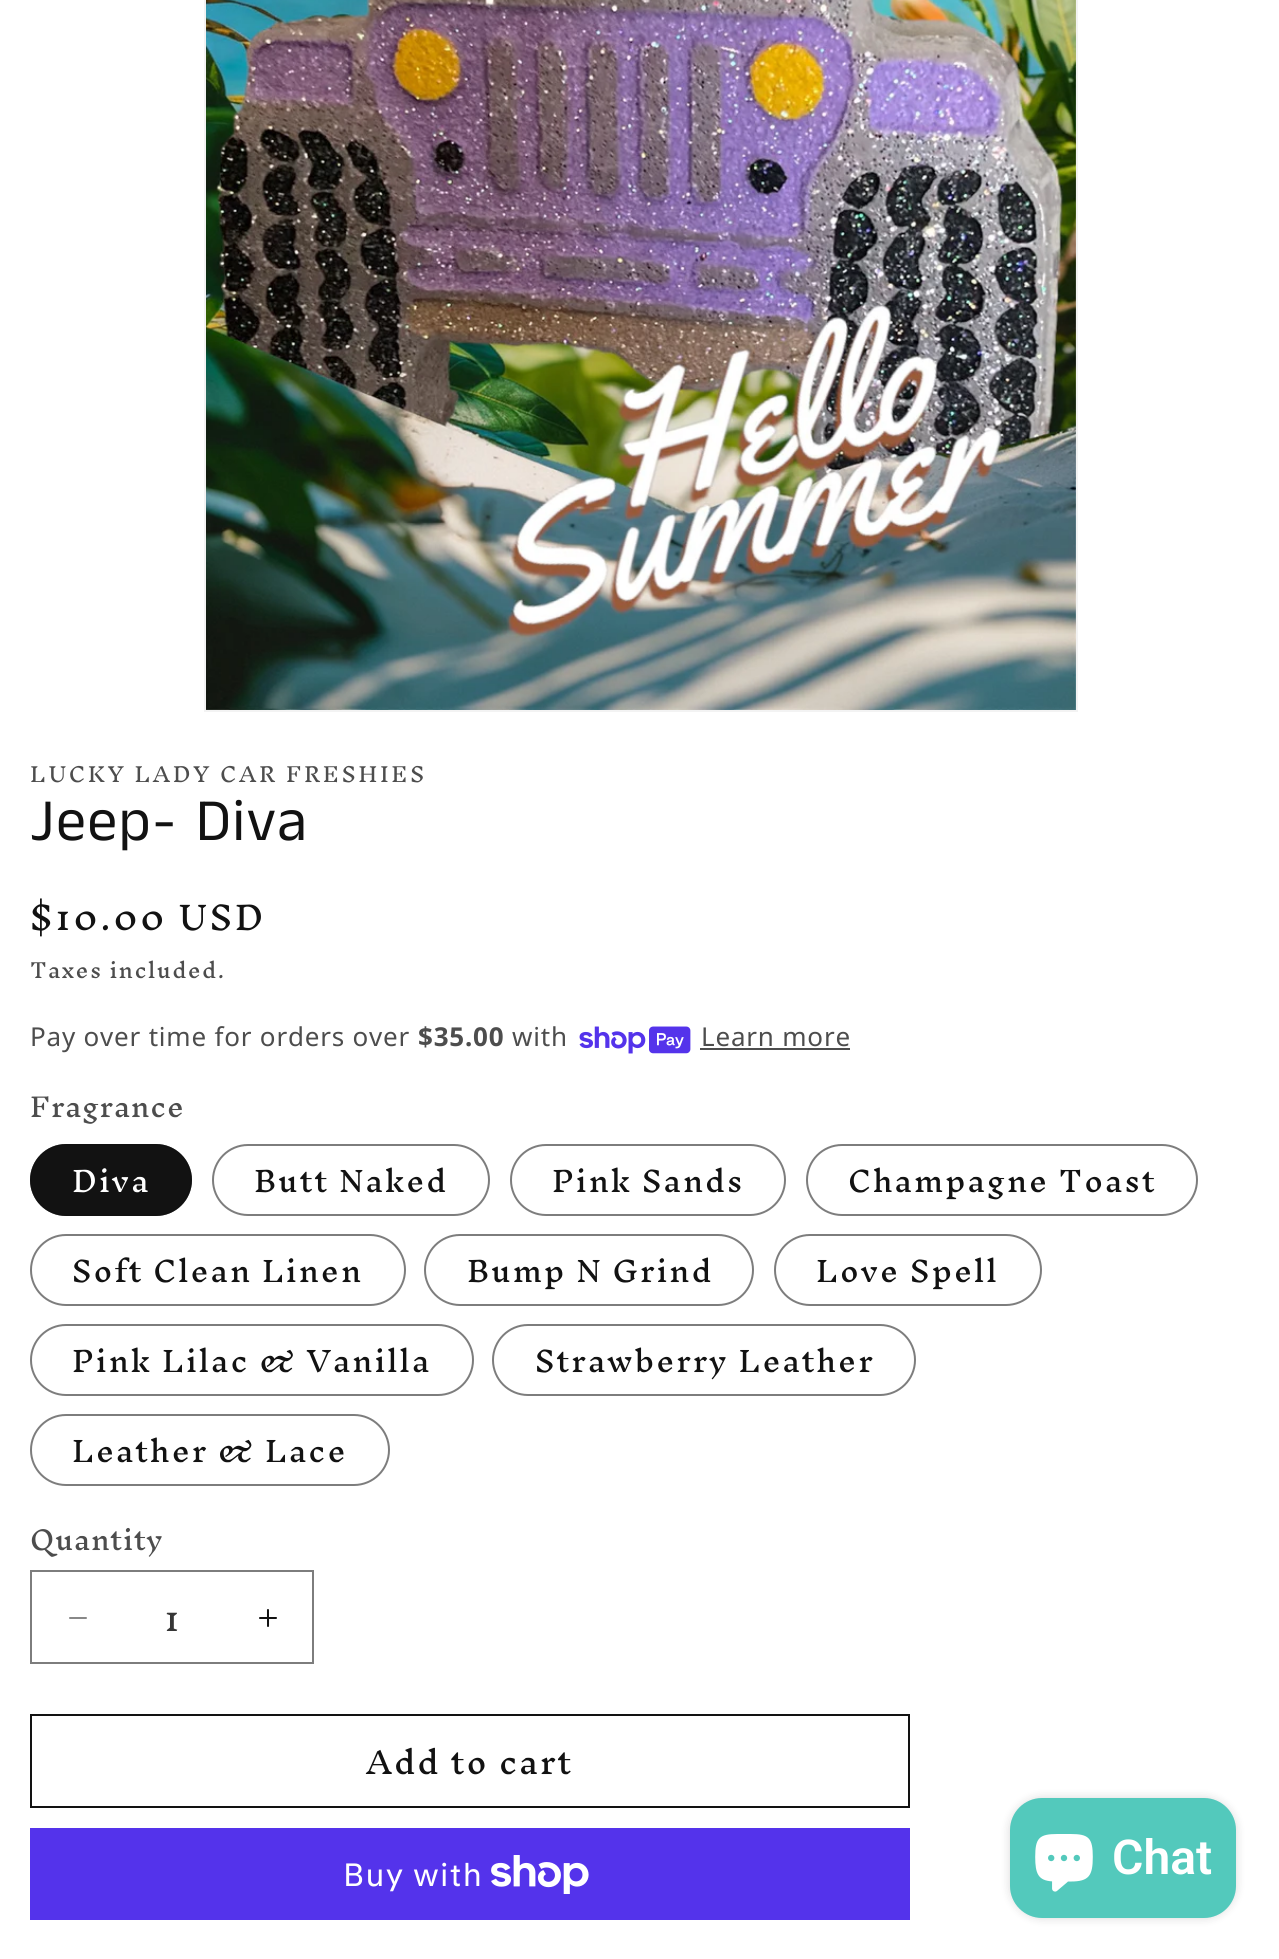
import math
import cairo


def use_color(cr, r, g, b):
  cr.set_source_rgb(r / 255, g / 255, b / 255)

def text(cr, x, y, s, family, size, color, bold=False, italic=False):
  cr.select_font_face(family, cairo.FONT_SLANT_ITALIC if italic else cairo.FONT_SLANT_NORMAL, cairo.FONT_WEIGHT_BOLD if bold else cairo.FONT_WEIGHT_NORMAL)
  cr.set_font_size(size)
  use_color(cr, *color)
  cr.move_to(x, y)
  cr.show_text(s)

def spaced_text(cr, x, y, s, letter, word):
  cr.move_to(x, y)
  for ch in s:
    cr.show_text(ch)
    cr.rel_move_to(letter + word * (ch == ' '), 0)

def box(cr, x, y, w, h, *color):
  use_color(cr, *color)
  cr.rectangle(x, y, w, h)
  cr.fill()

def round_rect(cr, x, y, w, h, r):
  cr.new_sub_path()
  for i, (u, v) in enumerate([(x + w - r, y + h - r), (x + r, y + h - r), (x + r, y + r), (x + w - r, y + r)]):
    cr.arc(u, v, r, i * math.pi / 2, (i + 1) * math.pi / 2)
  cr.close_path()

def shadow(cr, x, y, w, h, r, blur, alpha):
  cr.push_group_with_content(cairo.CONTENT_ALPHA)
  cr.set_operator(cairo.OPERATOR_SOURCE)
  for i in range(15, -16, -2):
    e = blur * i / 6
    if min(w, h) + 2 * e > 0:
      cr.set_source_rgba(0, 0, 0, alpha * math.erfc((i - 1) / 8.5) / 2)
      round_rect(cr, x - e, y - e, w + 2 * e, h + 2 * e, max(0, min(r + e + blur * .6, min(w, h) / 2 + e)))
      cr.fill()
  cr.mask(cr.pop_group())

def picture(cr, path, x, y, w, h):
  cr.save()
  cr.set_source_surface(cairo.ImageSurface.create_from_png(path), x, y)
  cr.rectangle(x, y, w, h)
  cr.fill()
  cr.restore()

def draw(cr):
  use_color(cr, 255, 255, 255)
  cr.paint()
  cr.rectangle(205, -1, 872, 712)
  use_color(cr, 243, 243, 243)
  cr.stroke()
  picture(cr, "img_01.png", 206, 0, 870, 710)
  picture(cr, "img_02.png", 579, 1026, 112, 28)
  box(cr, 700, 1048, 150, 2, 77, 77, 77)
  use_color(cr, 18, 18, 18)
  round_rect(cr, 30, 1144, 162, 72, 36)
  cr.fill()
  round_rect(cr, 31, 1145, 160, 70, 35)
  cr.set_source_rgba(0.071, 0.071, 0.071, 0.55)
  cr.stroke()
  round_rect(cr, 213, 1145, 276, 70, 35)
  use_color(cr, 125, 125, 125)
  cr.stroke()
  round_rect(cr, 511, 1145, 274, 70, 35)
  cr.stroke()
  round_rect(cr, 807, 1145, 390, 70, 35)
  cr.stroke()
  round_rect(cr, 31, 1235, 374, 70, 35)
  cr.stroke()
  round_rect(cr, 425, 1235, 328, 70, 35)
  cr.stroke()
  round_rect(cr, 775, 1235, 266, 70, 35)
  cr.stroke()
  round_rect(cr, 31, 1325, 442, 70, 35)
  cr.stroke()
  round_rect(cr, 493, 1325, 422, 70, 35)
  cr.stroke()
  round_rect(cr, 31, 1415, 358, 70, 35)
  cr.stroke()
  picture(cr, "img_03.png", 69, 1617, 18, 2)
  picture(cr, "img_04.png", 259, 1609, 18, 18)
  cr.rectangle(31, 1571, 282, 92)
  cr.stroke()
  cr.rectangle(31, 1715, 878, 92)
  use_color(cr, 18, 18, 18)
  cr.stroke()
  box(cr, 30, 1828, 880, 92, 84, 51, 235)
  picture(cr, "img_05.png", 491, 1855, 98, 39)
  use_color(cr, 0, 0, 0)
  shadow(cr, 1010, 1798, 226, 120, 32, 5, 0.15)
  use_color(cr, 83, 201, 188)
  round_rect(cr, 1010, 1798, 226, 120, 32)
  cr.fill()
  picture(cr, "img_06.png", 1035, 1834, 58, 58)
  cr.select_font_face("Inknut Antiqua")
  cr.set_font_size(20)
  use_color(cr, 77, 77, 77)
  spaced_text(cr, 30, 782, "LUCKY LADY CAR FRESHIES", 2.6, 0)
  cr.select_font_face("Anek Tamil")
  cr.set_font_size(60)
  use_color(cr, 18, 18, 18)
  spaced_text(cr, 30, 840, "Jeep- Diva", 1.25, 0)
  cr.select_font_face("Inknut Antiqua")
  cr.set_font_size(32)
  spaced_text(cr, 30, 930, "$10.00 USD", 2.6, 0)
  cr.set_font_size(20)
  use_color(cr, 77, 77, 77)
  spaced_text(cr, 30, 978, "Taxes included.", 1.4, 0)
  cr.select_font_face("Noto Sans")
  cr.set_font_size(26)
  spaced_text(cr, 30, 1046, "Pay over time for orders over", 0.8, 0)
  cr.select_font_face("Noto Sans", cairo.FONT_SLANT_NORMAL, cairo.FONT_WEIGHT_BOLD)
  spaced_text(cr, 418, 1046, "$35.00", 0.8, 0)
  cr.select_font_face("Noto Sans")
  spaced_text(cr, 512, 1046, "with", 0.8, 0)
  spaced_text(cr, 701, 1046, "Learn more", 0.8, 0)
  cr.select_font_face("Inknut Antiqua")
  spaced_text(cr, 30, 1117, "Fragrance", 0.8, 0)
  cr.set_font_size(28)
  use_color(cr, 255, 255, 255)
  spaced_text(cr, 72, 1192, "Diva", 2, 0)
  use_color(cr, 18, 18, 18)
  spaced_text(cr, 254, 1192, "Butt Naked", 2, 0)
  spaced_text(cr, 552, 1192, "Pink Sands", 2, 0)
  spaced_text(cr, 848, 1192, "Champagne Toast", 2, 0)
  spaced_text(cr, 72, 1282, "Soft Clean Linen", 2, 0)
  spaced_text(cr, 467, 1282, "Bump N Grind", 2, 0)
  spaced_text(cr, 816, 1282, "Love Spell", 2, 0)
  spaced_text(cr, 72, 1372, "Pink Lilac & Vanilla", 2, 0)
  spaced_text(cr, 535, 1372, "Strawberry Leather", 2, 0)
  spaced_text(cr, 72, 1462, "Leather & Lace", 2, 0)
  cr.set_font_size(26)
  use_color(cr, 77, 77, 77)
  spaced_text(cr, 30, 1550, "Quantity", 0.8, 0)
  text(cr, 164, 1631, "1", "Inknut Antiqua", 32, (54, 54, 54))
  cr.set_font_size(30)
  use_color(cr, 18, 18, 18)
  spaced_text(cr, 366, 1774, "Add to cart", 2, 0)
  cr.select_font_face("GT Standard")
  cr.set_font_size(32)
  use_color(cr, 255, 255, 255)
  spaced_text(cr, 343, 1886, "Buy with", 1.25, 0)
  text(cr, 1112, 1874, "Chat", "Roboto SemiBold", 48, (255, 255, 255))


surface = cairo.ImageSurface(cairo.FORMAT_RGB24, 1279, 1959)
cr = cairo.Context(surface)
options = cairo.FontOptions()
options.set_hint_metrics(cairo.HINT_METRICS_OFF)
options.set_hint_style(cairo.HINT_STYLE_NONE)
cr.set_font_options(options)
cr.set_miter_limit(4)
draw(cr)
surface.write_to_png("out.png")
